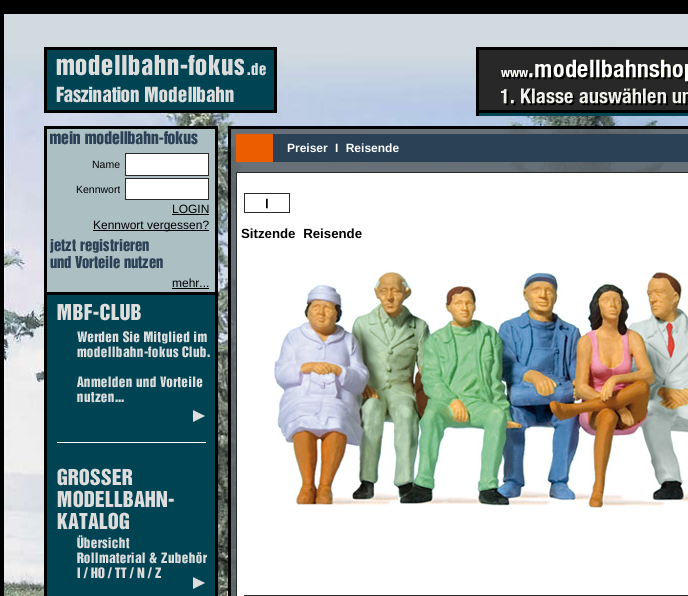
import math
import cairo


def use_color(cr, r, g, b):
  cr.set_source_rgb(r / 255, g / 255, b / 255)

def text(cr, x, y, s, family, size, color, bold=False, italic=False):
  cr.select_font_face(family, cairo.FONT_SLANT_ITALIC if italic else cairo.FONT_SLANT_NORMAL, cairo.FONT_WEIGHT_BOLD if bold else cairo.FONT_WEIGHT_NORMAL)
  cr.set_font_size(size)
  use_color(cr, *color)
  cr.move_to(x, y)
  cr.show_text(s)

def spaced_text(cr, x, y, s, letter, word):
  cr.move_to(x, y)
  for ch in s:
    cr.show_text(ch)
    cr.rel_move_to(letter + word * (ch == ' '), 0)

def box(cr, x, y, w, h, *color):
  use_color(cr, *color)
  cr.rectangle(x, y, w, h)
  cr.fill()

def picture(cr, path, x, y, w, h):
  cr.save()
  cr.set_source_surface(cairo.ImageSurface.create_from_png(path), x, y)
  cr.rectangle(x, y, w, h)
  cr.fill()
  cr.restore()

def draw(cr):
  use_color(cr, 0, 0, 0)
  cr.paint()
  picture(cr, "img_01.png", 4, 14, 684, 582)
  picture(cr, "img_02.png", 44, 47, 233, 66)
  box(cr, 476, 47, 212, 3, 0, 0, 0)
  box(cr, 476, 50, 3, 66, 0, 0, 0)
  box(cr, 479, 113, 209, 3, 0, 67, 82)
  picture(cr, "img_03.png", 479, 50, 209, 63)
  box(cr, 44, 126, 174, 3, 0, 0, 0)
  box(cr, 44, 129, 3, 467, 0, 0, 0)
  box(cr, 47, 295, 168, 301, 0, 67, 82)
  box(cr, 47, 129, 168, 163, 172, 191, 195)
  picture(cr, "img_04.png", 50, 131, 148, 14)
  use_color(cr, 255, 255, 255)
  cr.rectangle(125.5, 153.5, 83, 22)
  cr.fill_preserve()
  use_color(cr, 41, 41, 41)
  cr.set_line_width(1)
  cr.stroke()
  use_color(cr, 255, 255, 255)
  cr.rectangle(125.5, 178.5, 83, 21)
  cr.fill_preserve()
  use_color(cr, 41, 41, 41)
  cr.stroke()
  box(cr, 172, 214, 37, 1, 0, 0, 0)
  box(cr, 93, 230, 116, 1, 0, 0, 0)
  picture(cr, "img_05.png", 50, 239, 113, 30)
  box(cr, 172, 288, 37, 1, 0, 0, 0)
  box(cr, 47, 292, 168, 3, 0, 0, 0)
  picture(cr, "img_06.png", 57, 303, 153, 119)
  box(cr, 57, 442, 149, 1, 255, 255, 255)
  picture(cr, "img_07.png", 57, 468, 150, 121)
  box(cr, 215, 129, 3, 467, 0, 0, 0)
  cr.set_source_rgba(0.365, 0.4, 0.424, 0.9)
  cr.rectangle(229.5, 127.5, 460, 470)
  cr.fill_preserve()
  use_color(cr, 0, 0, 0)
  cr.set_line_width(3)
  cr.stroke()
  box(cr, 236, 134, 37, 28, 236, 93, 0)
  box(cr, 273, 134, 415, 28, 43, 65, 86)
  box(cr, 236, 172, 452, 424, 41, 41, 41)
  box(cr, 237, 173, 451, 422, 255, 255, 255)
  picture(cr, "img_08.png", 244, 193, 46, 20)
  picture(cr, "img_09.png", 272, 267, 416, 245)
  box(cr, 237, 595, 7, 1, 255, 255, 255)
  text(cr, 92, 168, "Name", "Liberation Sans", 10.5, (0, 0, 0))
  text(cr, 76, 193, "Kennwort", "Liberation Sans", 10.5, (0, 0, 0))
  text(cr, 172, 213, "LOGIN", "Liberation Sans", 12, (0, 0, 0))
  text(cr, 93, 229, "Kennwort vergessen?", "Liberation Sans", 12, (0, 0, 0))
  text(cr, 172, 287, "mehr...", "Liberation Sans", 12, (0, 0, 0))
  cr.select_font_face("Liberation Sans", cairo.FONT_SLANT_NORMAL, cairo.FONT_WEIGHT_BOLD)
  use_color(cr, 255, 255, 255)
  spaced_text(cr, 287, 152, "Preiser I Reisende", 0, 4)
  cr.set_font_size(13.25)
  use_color(cr, 0, 0, 0)
  spaced_text(cr, 241, 238, "Sitzende Reisende", 0, 4)


surface = cairo.ImageSurface(cairo.FORMAT_RGB24, 688, 596)
cr = cairo.Context(surface)
options = cairo.FontOptions()
options.set_hint_metrics(cairo.HINT_METRICS_OFF)
options.set_hint_style(cairo.HINT_STYLE_NONE)
cr.set_font_options(options)
cr.set_miter_limit(4)
draw(cr)
surface.write_to_png("out.png")
